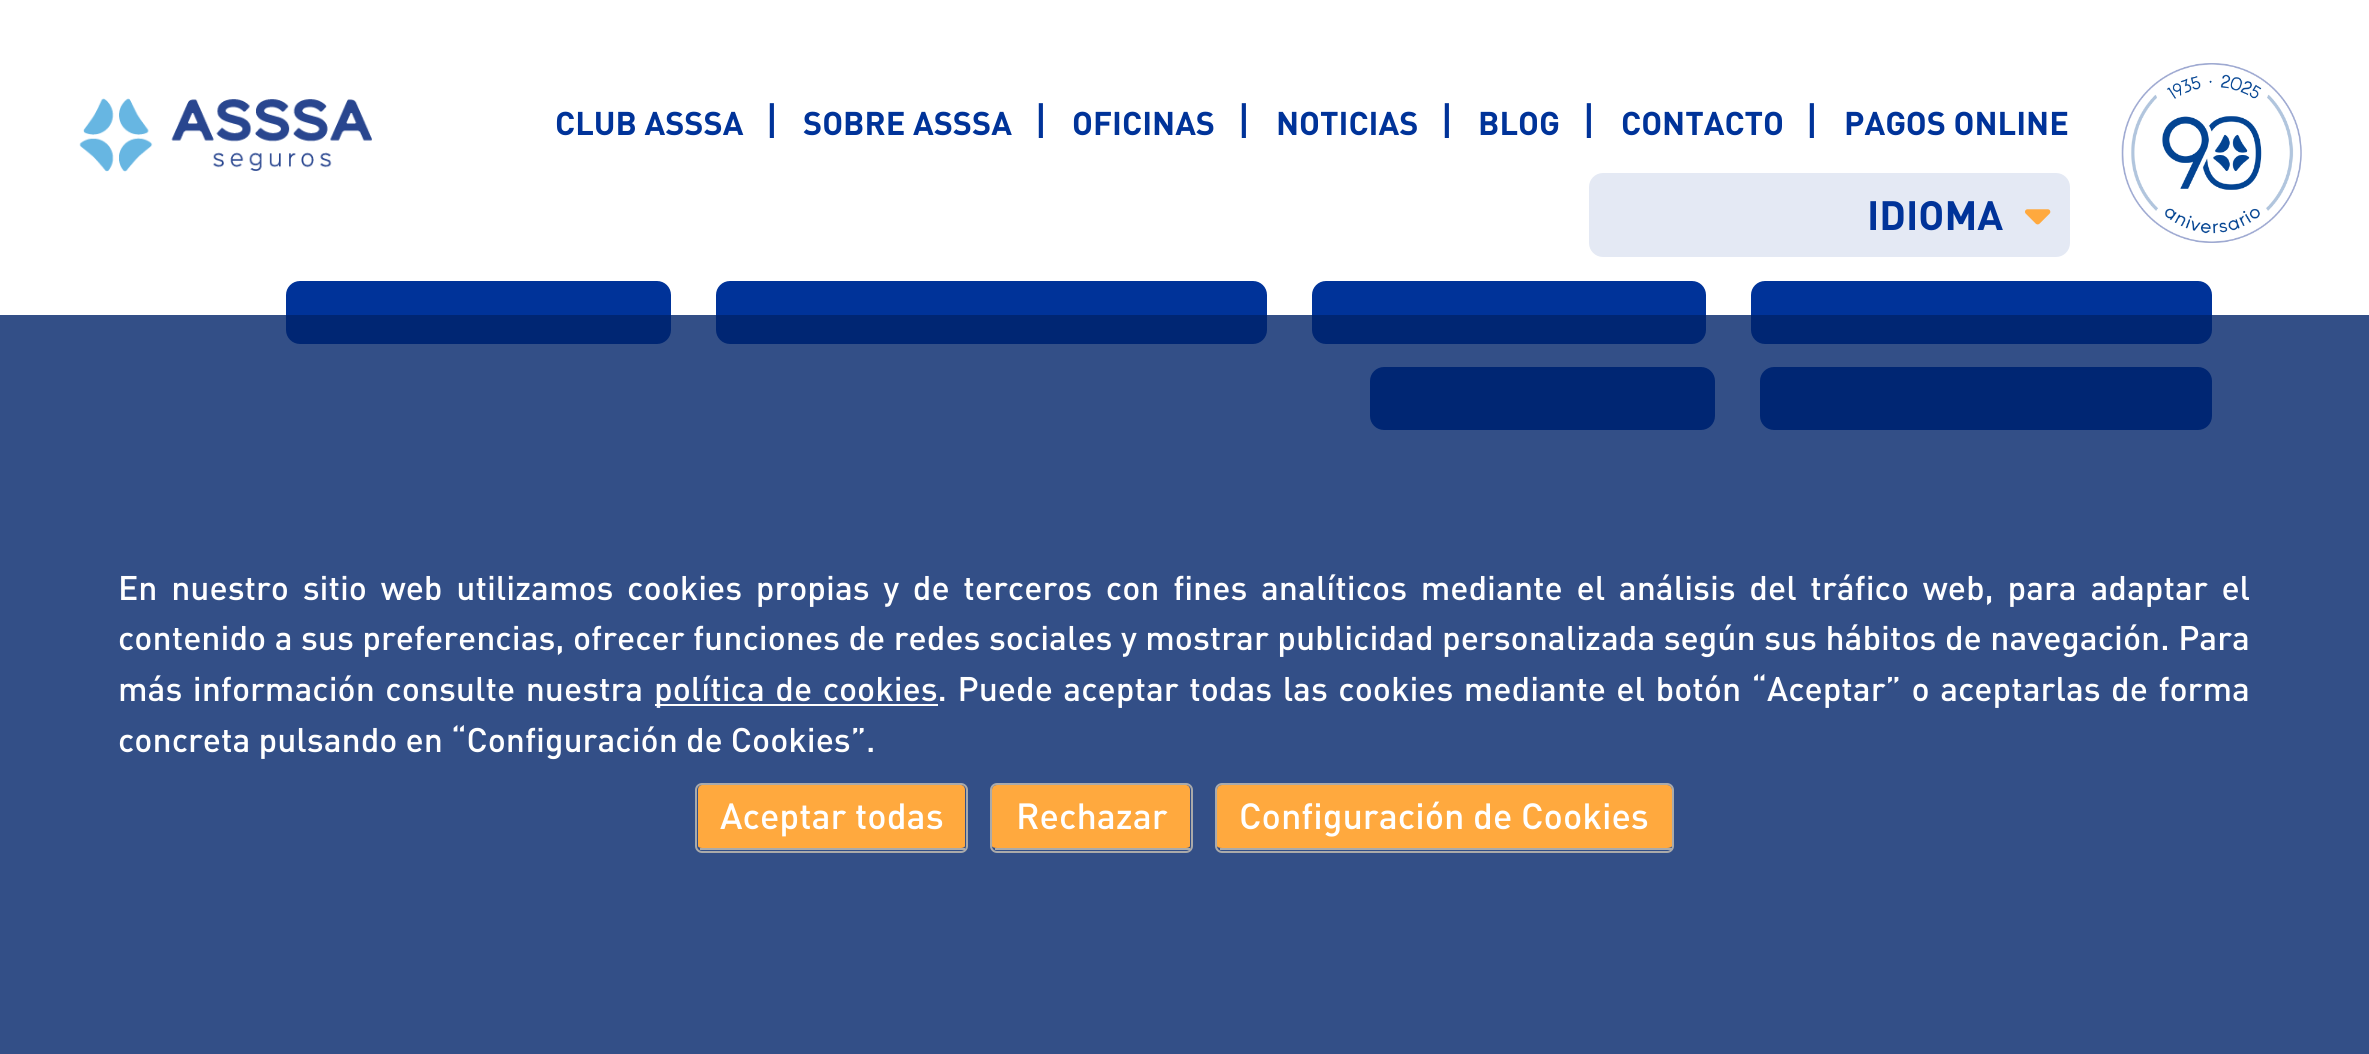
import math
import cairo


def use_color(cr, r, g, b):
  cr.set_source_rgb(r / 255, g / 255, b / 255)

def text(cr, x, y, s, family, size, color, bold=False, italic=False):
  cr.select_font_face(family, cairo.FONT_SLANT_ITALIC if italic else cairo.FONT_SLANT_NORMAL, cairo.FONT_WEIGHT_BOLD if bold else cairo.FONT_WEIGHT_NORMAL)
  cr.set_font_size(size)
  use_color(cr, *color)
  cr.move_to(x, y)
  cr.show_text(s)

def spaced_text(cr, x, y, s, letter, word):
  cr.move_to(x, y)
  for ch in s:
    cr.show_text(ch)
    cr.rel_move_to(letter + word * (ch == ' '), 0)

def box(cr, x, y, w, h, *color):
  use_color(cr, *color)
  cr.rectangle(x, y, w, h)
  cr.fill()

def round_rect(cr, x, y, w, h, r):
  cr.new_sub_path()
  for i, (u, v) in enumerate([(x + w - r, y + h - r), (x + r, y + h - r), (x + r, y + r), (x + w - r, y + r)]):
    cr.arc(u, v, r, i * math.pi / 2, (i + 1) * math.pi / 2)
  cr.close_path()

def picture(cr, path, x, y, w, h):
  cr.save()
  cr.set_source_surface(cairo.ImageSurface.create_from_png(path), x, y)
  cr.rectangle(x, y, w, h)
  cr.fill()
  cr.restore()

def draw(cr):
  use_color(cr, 255, 255, 255)
  cr.paint()
  picture(cr, "img_01.png", 79, 98, 293, 74)
  use_color(cr, 228, 233, 244)
  round_rect(cr, 1589, 173, 481, 84, 14)
  cr.fill()
  picture(cr, "img_02.png", 2025, 209, 26, 16)
  picture(cr, "img_03.png", 2121, 63, 181, 180)
  use_color(cr, 0, 51, 153)
  round_rect(cr, 286, 281, 385, 63, 14)
  cr.fill()
  round_rect(cr, 716, 281, 551, 63, 14)
  cr.fill()
  round_rect(cr, 1312, 281, 394, 63, 14)
  cr.fill()
  round_rect(cr, 1751, 281, 461, 63, 14)
  cr.fill()
  round_rect(cr, 1370, 367, 345, 63, 14)
  cr.fill()
  round_rect(cr, 1760, 367, 452, 63, 14)
  cr.fill()
  cr.set_source_rgba(0, 0.137, 0.412, 0.8)
  cr.rectangle(0, 315, 2369, 739)
  cr.fill()
  box(cr, 655, 704, 283, 2, 255, 255, 255)
  use_color(cr, 255, 169, 62)
  cr.new_path()
  cr.move_to(702, 785)
  cr.line_to(961, 785)
  cr.curve_to(963, 785, 965, 787, 965, 790)
  cr.line_to(965, 846)
  cr.curve_to(965, 847, 963, 848, 961, 848)
  cr.line_to(702, 848)
  cr.curve_to(700, 848, 698, 847, 698, 846)
  cr.line_to(698, 790)
  cr.curve_to(698, 787, 700, 785, 702, 785)
  cr.close_path()
  cr.fill()
  round_rect(cr, 696, 784, 271, 68, 6)
  use_color(cr, 170, 170, 170)
  cr.stroke()
  box(cr, 700, 848, 265, 2, 170, 170, 170)
  use_color(cr, 255, 169, 62)
  cr.new_path()
  cr.move_to(997, 785)
  cr.line_to(1186, 785)
  cr.curve_to(1188, 785, 1190, 787, 1190, 790)
  cr.line_to(1190, 846)
  cr.curve_to(1190, 847, 1188, 848, 1186, 848)
  cr.line_to(997, 848)
  cr.curve_to(994, 848, 992, 847, 992, 846)
  cr.line_to(992, 790)
  cr.curve_to(992, 787, 994, 785, 997, 785)
  cr.close_path()
  cr.fill()
  round_rect(cr, 991, 784, 201, 68, 6)
  use_color(cr, 170, 170, 170)
  cr.stroke()
  box(cr, 995, 848, 195, 2, 170, 170, 170)
  use_color(cr, 255, 169, 62)
  cr.new_path()
  cr.move_to(1222, 785)
  cr.line_to(1667, 785)
  cr.curve_to(1670, 785, 1672, 787, 1672, 790)
  cr.line_to(1672, 846)
  cr.curve_to(1672, 847, 1670, 848, 1667, 848)
  cr.line_to(1222, 848)
  cr.curve_to(1219, 848, 1217, 847, 1217, 846)
  cr.line_to(1217, 790)
  cr.curve_to(1217, 787, 1219, 785, 1222, 785)
  cr.close_path()
  cr.fill()
  round_rect(cr, 1216, 784, 457, 68, 6)
  use_color(cr, 170, 170, 170)
  cr.stroke()
  box(cr, 1220, 848, 452, 2, 170, 170, 170)
  text(cr, 555, 135, "CLUB ASSSA", "DIN", 32.5, (0, 51, 153), bold=True)
  text(cr, 765, 135, "|", "DIN Medium", 40.5, (0, 51, 153))
  text(cr, 803, 135, "SOBRE ASSSA", "DIN", 32.5, (0, 51, 153), bold=True)
  text(cr, 1034, 135, "|", "DIN Medium", 40.5, (0, 51, 153))
  text(cr, 1072, 135, "OFICINAS", "DIN", 32.5, (0, 51, 153), bold=True)
  text(cr, 1237, 135, "|", "DIN Medium", 40.5, (0, 51, 153))
  text(cr, 1276, 135, "NOTICIAS", "DIN", 32.5, (0, 51, 153), bold=True)
  text(cr, 1440, 135, "|", "DIN Medium", 40.5, (0, 51, 153))
  text(cr, 1478, 135, "BLOG", "DIN", 32.5, (0, 51, 153), bold=True)
  text(cr, 1582, 135, "|", "DIN Medium", 40.5, (0, 51, 153))
  text(cr, 1621, 135, "CONTACTO", "DIN", 32.5, (0, 51, 153), bold=True)
  text(cr, 1805, 135, "|", "DIN Medium", 40.5, (0, 51, 153))
  text(cr, 1844, 135, "PAGOS ONLINE", "DIN", 32.5, (0, 51, 153), bold=True)
  text(cr, 1867, 230, "IDIOMA", "DIN", 40.5, (0, 51, 153), bold=True)
  cr.select_font_face("DIN Medium")
  cr.set_font_size(33.75)
  use_color(cr, 255, 255, 255)
  spaced_text(cr, 118, 600, "En nuestro sitio web utilizamos cookies propias y de terceros con fines analíticos mediante el análisis del tráfico web, para adaptar el", 0, 5.6)
  spaced_text(cr, 118, 650, "contenido a sus preferencias, ofrecer funciones de redes sociales y mostrar publicidad personalizada según sus hábitos de navegación. Para", 0, 0.4)
  spaced_text(cr, 118, 701, "más información consulte nuestra", 0, 2.4)
  spaced_text(cr, 654, 701, "política de cookies. Puede aceptar todas las cookies mediante el botón “Aceptar” o aceptarlas de forma", 0, 2.4)
  text(cr, 118, 752, "concreta pulsando en “Configuración de Cookies”.", "DIN Medium", 33.75, (255, 255, 255))
  text(cr, 720, 829, "Aceptar todas", "DIN Medium", 36, (255, 255, 255))
  text(cr, 1016, 829, "Rechazar", "DIN Medium", 36, (255, 255, 255))
  text(cr, 1239, 829, "Configuración de Cookies", "DIN Medium", 36, (255, 255, 255))


surface = cairo.ImageSurface(cairo.FORMAT_RGB24, 2369, 1054)
cr = cairo.Context(surface)
options = cairo.FontOptions()
options.set_hint_metrics(cairo.HINT_METRICS_OFF)
options.set_hint_style(cairo.HINT_STYLE_NONE)
cr.set_font_options(options)
cr.set_miter_limit(4)
draw(cr)
surface.write_to_png("out.png")
